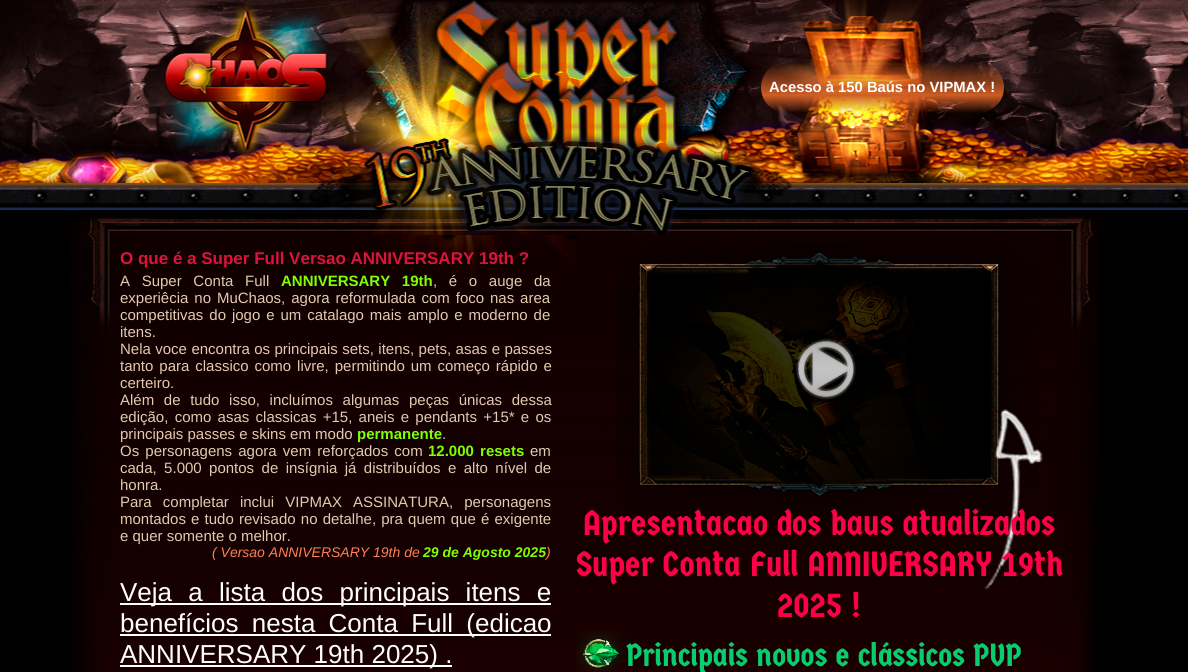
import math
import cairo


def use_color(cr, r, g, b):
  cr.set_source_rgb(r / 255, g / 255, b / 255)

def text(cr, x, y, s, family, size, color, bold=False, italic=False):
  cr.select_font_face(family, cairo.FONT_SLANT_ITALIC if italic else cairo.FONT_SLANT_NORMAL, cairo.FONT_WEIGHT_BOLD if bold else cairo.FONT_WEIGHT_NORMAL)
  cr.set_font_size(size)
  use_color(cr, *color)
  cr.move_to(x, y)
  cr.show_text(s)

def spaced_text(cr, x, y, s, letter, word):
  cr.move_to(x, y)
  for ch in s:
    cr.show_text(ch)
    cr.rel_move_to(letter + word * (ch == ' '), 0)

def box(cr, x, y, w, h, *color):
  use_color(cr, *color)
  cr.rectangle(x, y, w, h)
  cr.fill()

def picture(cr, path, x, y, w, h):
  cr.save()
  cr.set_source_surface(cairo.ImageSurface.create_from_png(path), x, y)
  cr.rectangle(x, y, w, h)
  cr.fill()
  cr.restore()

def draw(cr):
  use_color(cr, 0, 0, 0)
  cr.paint()
  picture(cr, "img_01.png", 0, 0, 1188, 235)
  picture(cr, "img_02.png", 69, 235, 1032, 437)
  box(cr, 120, 603, 431, 2, 255, 255, 255)
  box(cr, 120, 634, 431, 2, 255, 255, 255)
  box(cr, 120, 665, 332, 2, 255, 255, 255)
  picture(cr, "img_03.png", 617, 241, 426, 349)
  picture(cr, "img_04.png", 576, 629, 50, 43)
  text(cr, 769, 92, "Acesso à 150 Baús no VIPMAX !", "Liberation Sans", 14.8, (255, 255, 255), bold=True)
  text(cr, 120, 264, "O que é a Super Full Versao ANNIVERSARY 19th ?", "Liberation Sans", 17, (220, 20, 60), bold=True)
  cr.select_font_face("Liberation Sans")
  cr.set_font_size(15)
  use_color(cr, 227, 201, 175)
  spaced_text(cr, 120, 286, "A Super Conta Full", 0, 7.5)
  cr.select_font_face("Liberation Sans", cairo.FONT_SLANT_NORMAL, cairo.FONT_WEIGHT_BOLD)
  use_color(cr, 127, 255, 0)
  spaced_text(cr, 281, 286, "ANNIVERSARY 19th", 0, 7.5)
  cr.select_font_face("Liberation Sans")
  use_color(cr, 227, 201, 175)
  spaced_text(cr, 433, 286, ", é o auge da", 0, 7.5)
  spaced_text(cr, 120, 303, "experiêcia no MuChaos, agora reformulada com foco nas area", 0, 1.75)
  spaced_text(cr, 120, 320, "competitivas do jogo e um catalago mais amplo e moderno de", 0, 1.75)
  text(cr, 120, 337, "itens.", "Liberation Sans", 15, (227, 201, 175))
  spaced_text(cr, 120, 354, "Nela voce encontra os principais sets, itens, pets, asas e passes", 0, 0.25)
  spaced_text(cr, 120, 371, "tanto para classico como livre, permitindo um começo rápido e", 0, 1.75)
  text(cr, 120, 388, "certeiro.", "Liberation Sans", 15, (227, 201, 175))
  spaced_text(cr, 120, 405, "Além de tudo isso, incluímos algumas peças únicas dessa", 0, 5.5)
  spaced_text(cr, 120, 422, "edição, como asas classicas +15, aneis e pendants +15* e os", 0, 2.1)
  text(cr, 120, 439, "principais passes e skins em modo", "Liberation Sans", 15, (227, 201, 175))
  text(cr, 357, 439, "permanente", "Liberation Sans", 15, (127, 255, 0), bold=True)
  text(cr, 442, 439, ".", "Liberation Sans", 15, (227, 201, 175))
  spaced_text(cr, 120, 456, "Os personagens agora vem reforçados com", 0, 2)
  cr.select_font_face("Liberation Sans", cairo.FONT_SLANT_NORMAL, cairo.FONT_WEIGHT_BOLD)
  use_color(cr, 127, 255, 0)
  spaced_text(cr, 428, 456, "12.000 resets", 0, 2)
  text(cr, 530, 456, "em", "Liberation Sans", 15, (227, 201, 175))
  spaced_text(cr, 120, 473, "cada, 5.000 pontos de insígnia já distribuídos e alto nível de", 0, 3.25)
  text(cr, 120, 490, "honra.", "Liberation Sans", 15, (227, 201, 175))
  spaced_text(cr, 120, 507, "Para completar inclui VIPMAX ASSINATURA, personagens", 0, 7)
  spaced_text(cr, 120, 524, "montados e tudo revisado no detalhe, pra quem que é exigente", 0, 1)
  text(cr, 120, 541, "e quer somente o melhor.", "Liberation Sans", 15, (227, 201, 175))
  text(cr, 212, 557, "( Versao ANNIVERSARY 19th de", "Liberation Sans", 14, (255, 127, 80), italic=True)
  text(cr, 423, 557, "29 de Agosto 2025", "Liberation Sans", 14, (127, 255, 0), bold=True, italic=True)
  text(cr, 546, 557, ")", "Liberation Sans", 14, (255, 127, 80), italic=True)
  cr.select_font_face("Liberation Sans")
  cr.set_font_size(26)
  use_color(cr, 255, 255, 255)
  spaced_text(cr, 120, 601, "Veja a lista dos principais itens e", 0, 9)
  spaced_text(cr, 120, 632, "benefícios nesta Conta Full (edicao", 0, 6)
  text(cr, 120, 663, "ANNIVERSARY 19th 2025) .", "Liberation Sans", 26, (255, 255, 255))
  text(cr, 583, 535, "Apresentacao dos baus atualizados", "Germania One", 35, (255, 0, 70))
  text(cr, 576, 576, "Super Conta Full ANNIVERSARY 19th", "Germania One", 35, (255, 0, 70))
  text(cr, 777, 617, "2025 !", "Germania One", 35, (255, 0, 70))
  text(cr, 626, 666, "Principais novos e clássicos PVP", "Germania One", 32, (8, 205, 108))


surface = cairo.ImageSurface(cairo.FORMAT_RGB24, 1188, 672)
cr = cairo.Context(surface)
options = cairo.FontOptions()
options.set_hint_metrics(cairo.HINT_METRICS_OFF)
options.set_hint_style(cairo.HINT_STYLE_NONE)
cr.set_font_options(options)
cr.set_miter_limit(4)
draw(cr)
surface.write_to_png("out.png")
